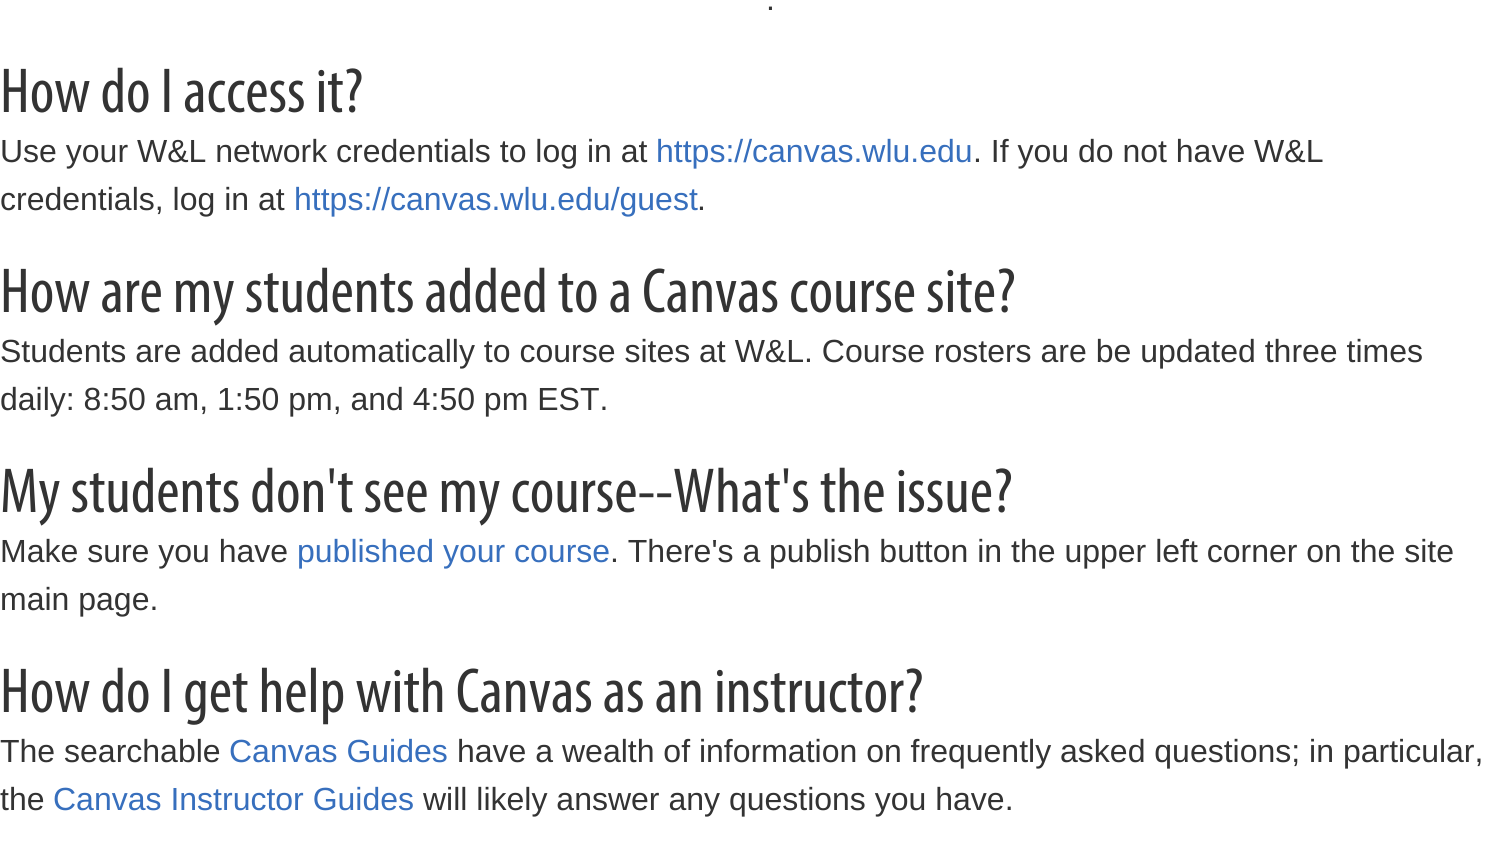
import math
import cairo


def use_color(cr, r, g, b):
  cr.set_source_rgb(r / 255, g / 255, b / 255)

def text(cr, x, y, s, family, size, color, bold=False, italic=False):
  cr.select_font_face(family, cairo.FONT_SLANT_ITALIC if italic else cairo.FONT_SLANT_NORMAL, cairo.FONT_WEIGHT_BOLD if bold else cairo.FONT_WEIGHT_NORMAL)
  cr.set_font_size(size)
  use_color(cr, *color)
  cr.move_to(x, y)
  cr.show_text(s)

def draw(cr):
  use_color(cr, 255, 255, 255)
  cr.paint()
  text(cr, 766, 10, ".", "Liberation Sans", 32, (51, 51, 51))
  text(cr, 0, 112, "How do I access it?", "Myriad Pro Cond", 64, (51, 51, 51))
  text(cr, 0, 162, "Use your W&L network credentials to log in at", "Liberation Sans", 32, (51, 51, 51))
  text(cr, 656, 162, "https://canvas.wlu.edu", "Liberation Sans", 32, (55, 111, 189))
  text(cr, 973, 162, ". If you do not have W&L", "Liberation Sans", 32, (51, 51, 51))
  text(cr, 0, 210, "credentials, log in at", "Liberation Sans", 32, (51, 51, 51))
  text(cr, 294, 210, "https://canvas.wlu.edu/guest", "Liberation Sans", 32, (55, 111, 189))
  text(cr, 697, 210, ".", "Liberation Sans", 32, (51, 51, 51))
  text(cr, 0, 312, "How are my students added to a Canvas course site?", "Myriad Pro Cond", 64, (51, 51, 51))
  text(cr, 0, 362, "Students are added automatically to course sites at W&L. Course rosters are be updated three times", "Liberation Sans", 32, (51, 51, 51))
  text(cr, 0, 410, "daily: 8:50 am, 1:50 pm, and 4:50 pm EST.", "Liberation Sans", 32, (51, 51, 51))
  text(cr, 0, 512, "My students don't see my course--What's the issue?", "Myriad Pro Cond", 64, (51, 51, 51))
  text(cr, 0, 562, "Make sure you have", "Liberation Sans", 32, (51, 51, 51))
  text(cr, 297, 562, "published your course", "Liberation Sans", 32, (55, 111, 189))
  text(cr, 610, 562, ". There's a publish button in the upper left corner on the site", "Liberation Sans", 32, (51, 51, 51))
  text(cr, 0, 610, "main page.", "Liberation Sans", 32, (51, 51, 51))
  text(cr, 0, 712, "How do I get help with Canvas as an instructor?", "Myriad Pro Cond", 64, (51, 51, 51))
  text(cr, 0, 762, "The searchable", "Liberation Sans", 32, (51, 51, 51))
  text(cr, 229, 762, "Canvas Guides", "Liberation Sans", 32, (55, 111, 189))
  text(cr, 457, 762, "have a wealth of information on frequently asked questions; in particular,", "Liberation Sans", 32, (51, 51, 51))
  text(cr, 0, 810, "the", "Liberation Sans", 32, (51, 51, 51))
  text(cr, 53, 810, "Canvas Instructor Guides", "Liberation Sans", 32, (55, 111, 189))
  text(cr, 423, 810, "will likely answer any questions you have.", "Liberation Sans", 32, (51, 51, 51))


surface = cairo.ImageSurface(cairo.FORMAT_RGB24, 1492, 848)
cr = cairo.Context(surface)
options = cairo.FontOptions()
options.set_hint_metrics(cairo.HINT_METRICS_OFF)
options.set_hint_style(cairo.HINT_STYLE_NONE)
cr.set_font_options(options)
cr.set_miter_limit(4)
draw(cr)
surface.write_to_png("out.png")
